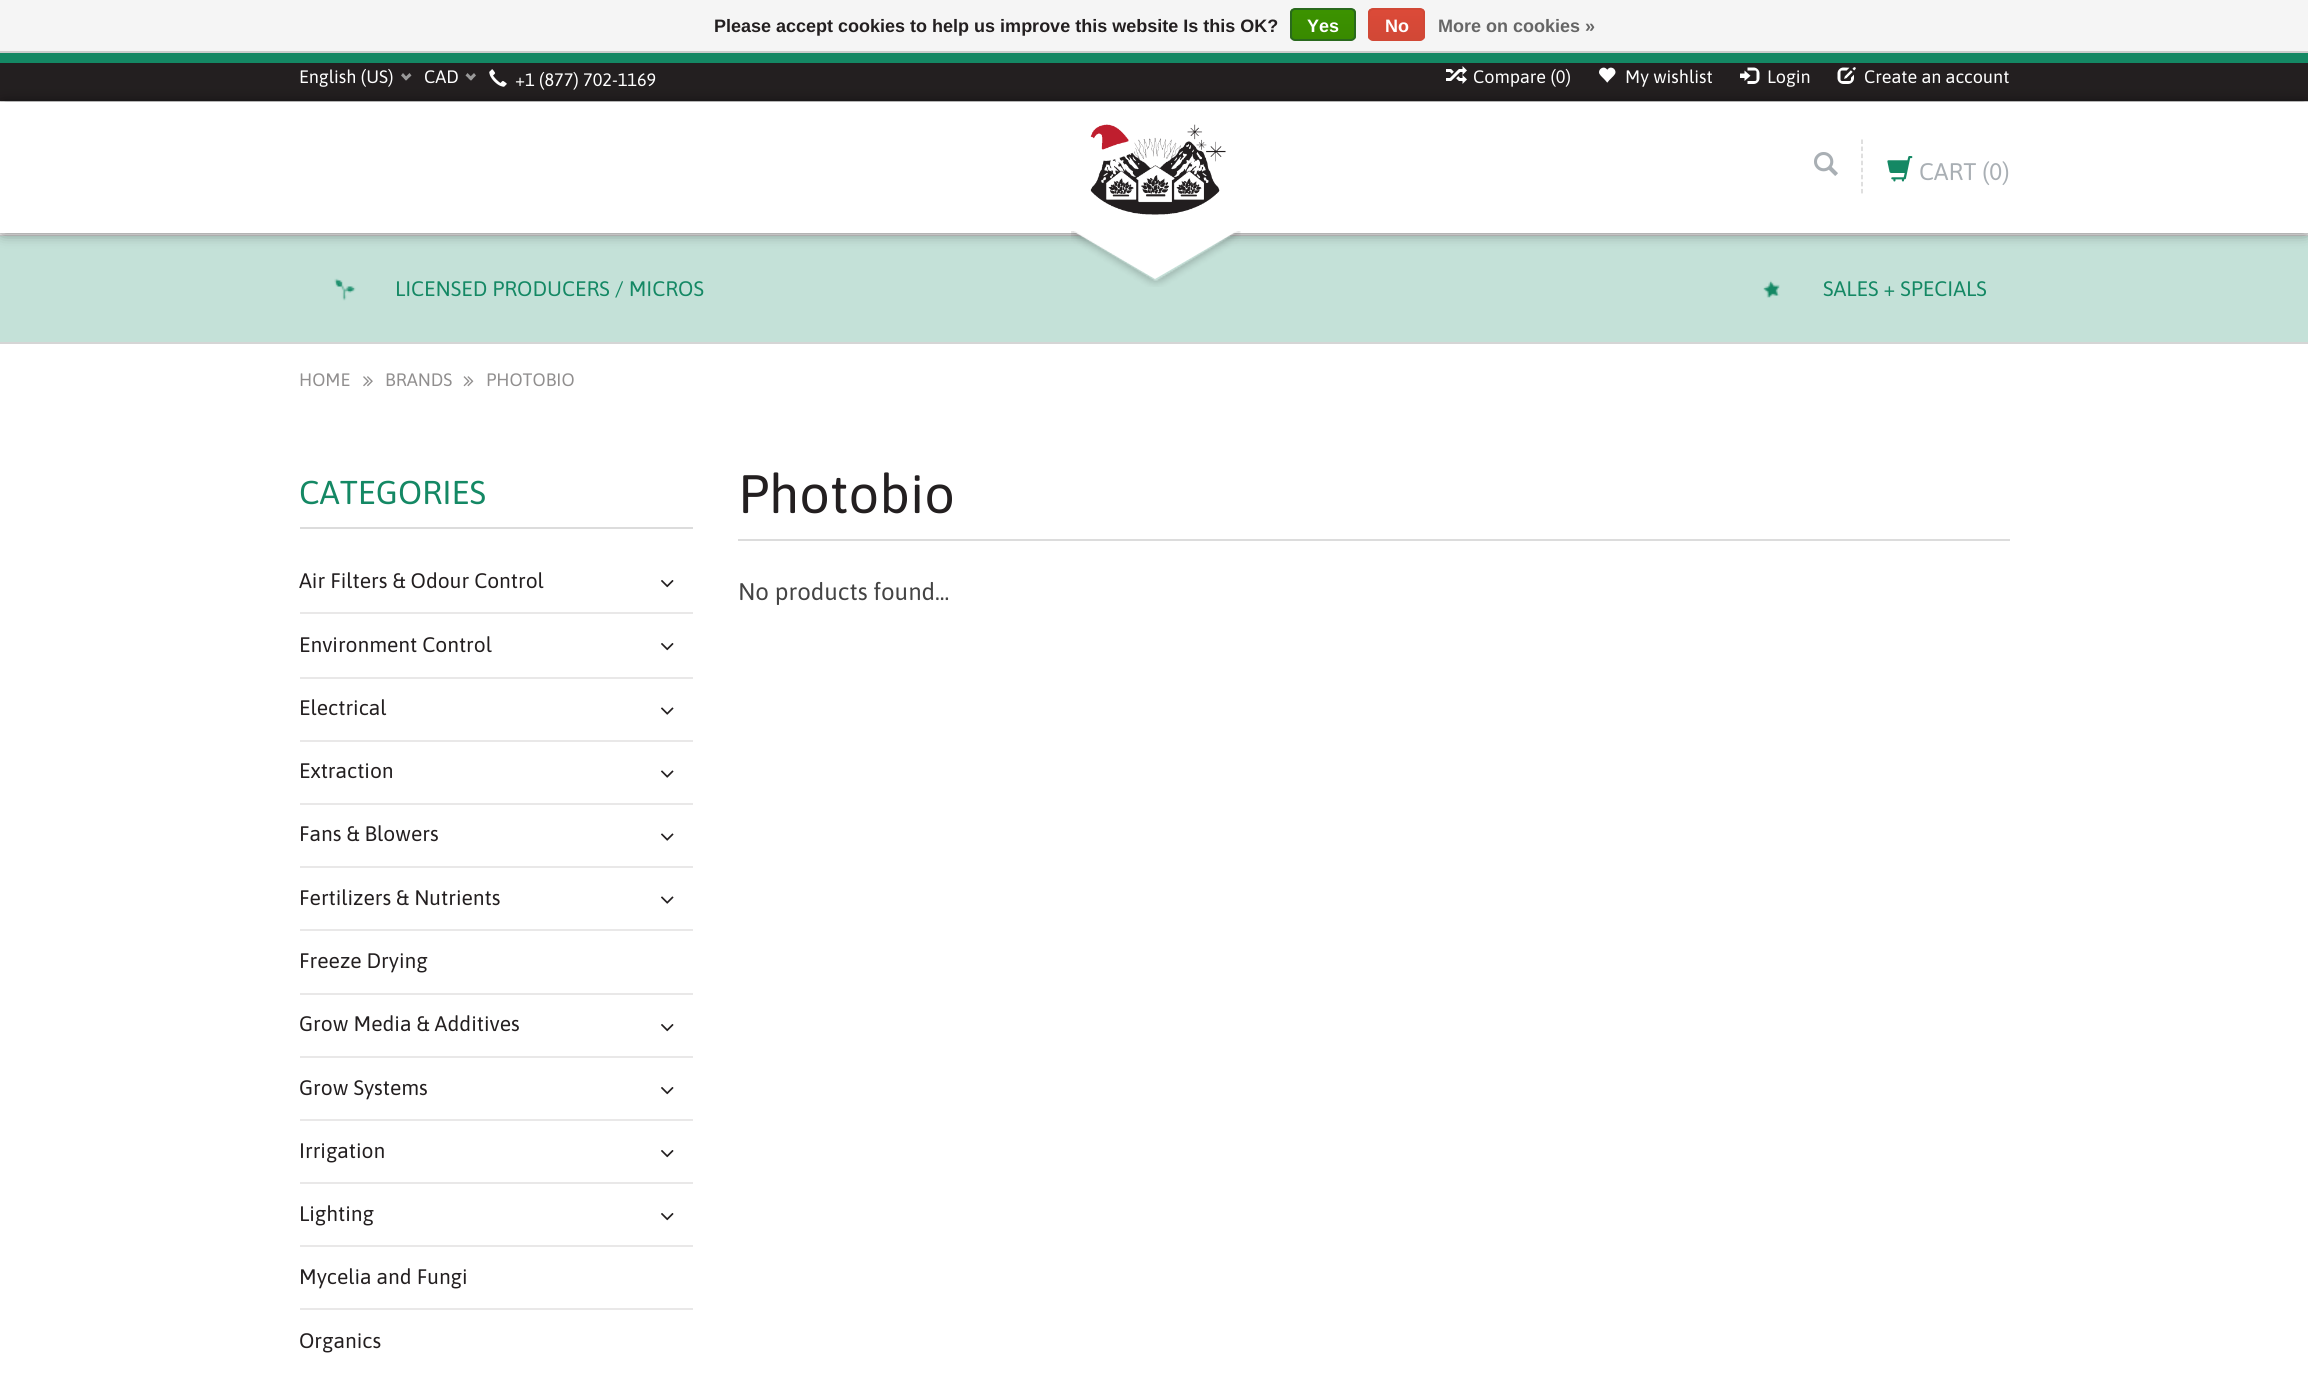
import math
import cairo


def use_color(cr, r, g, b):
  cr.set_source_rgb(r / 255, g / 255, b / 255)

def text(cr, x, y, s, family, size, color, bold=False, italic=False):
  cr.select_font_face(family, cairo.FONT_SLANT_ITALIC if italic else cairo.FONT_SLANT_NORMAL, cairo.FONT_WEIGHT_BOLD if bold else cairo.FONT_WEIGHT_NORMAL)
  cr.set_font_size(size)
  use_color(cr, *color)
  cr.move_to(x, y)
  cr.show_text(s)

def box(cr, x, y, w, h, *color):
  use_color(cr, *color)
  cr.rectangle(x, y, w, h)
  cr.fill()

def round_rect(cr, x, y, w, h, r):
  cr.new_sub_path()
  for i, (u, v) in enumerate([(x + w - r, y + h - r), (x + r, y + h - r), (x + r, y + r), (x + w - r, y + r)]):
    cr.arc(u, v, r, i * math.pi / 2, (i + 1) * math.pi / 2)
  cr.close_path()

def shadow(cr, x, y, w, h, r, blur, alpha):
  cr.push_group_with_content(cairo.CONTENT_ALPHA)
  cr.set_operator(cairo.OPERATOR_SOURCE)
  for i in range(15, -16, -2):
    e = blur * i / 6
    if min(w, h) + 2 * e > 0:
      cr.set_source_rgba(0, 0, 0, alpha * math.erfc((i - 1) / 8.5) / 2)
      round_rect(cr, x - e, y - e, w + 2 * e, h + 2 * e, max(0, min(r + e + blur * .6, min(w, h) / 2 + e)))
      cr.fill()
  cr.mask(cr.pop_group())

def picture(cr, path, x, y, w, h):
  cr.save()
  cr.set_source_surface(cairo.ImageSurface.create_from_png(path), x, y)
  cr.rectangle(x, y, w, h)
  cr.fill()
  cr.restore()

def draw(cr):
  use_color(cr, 255, 255, 255)
  cr.paint()
  box(cr, 0, 0, 2308, 51, 245, 245, 245)
  box(cr, 0, 51, 2308, 2, 204, 204, 204)
  cr.save()
  round_rect(cr, 1290, 8, 66, 33, 5)
  cr.clip()
  gradient = cairo.LinearGradient(1323, 9, 1323, 39)
  gradient.add_color_stop_rgba(0, 0.235, 0.576, 0, 1)
  gradient.add_color_stop_rgba(1, 0.224, 0.541, 0, 1)
  cr.set_source(gradient)
  cr.rectangle(1290, 9, 66, 30)
  cr.fill()
  cr.restore()
  round_rect(cr, 1291, 9, 64, 31, 4)
  use_color(cr, 41, 105, 29)
  cr.stroke()
  cr.save()
  round_rect(cr, 1368, 8, 57, 33, 5)
  cr.clip()
  gradient = cairo.LinearGradient(1397, 9, 1397, 39)
  gradient.add_color_stop_rgba(0, 0.863, 0.29, 0.22, 1)
  gradient.add_color_stop_rgba(1, 0.82, 0.282, 0.212, 1)
  cr.set_source(gradient)
  cr.rectangle(1368, 9, 57, 30)
  cr.fill()
  cr.restore()
  round_rect(cr, 1369, 9, 55, 31, 4)
  use_color(cr, 209, 72, 54)
  cr.stroke()
  box(cr, 0, 53, 2308, 10, 20, 136, 100)
  box(cr, 0, 233, 2308, 2, 240, 240, 240)
  box(cr, 0, 63, 2308, 38, 35, 31, 32)
  box(cr, 0, 101, 2308, 1, 240, 240, 240)
  use_color(cr, 153, 153, 153)
  cr.new_path()
  cr.move_to(409.5, 73)
  cr.line_to(411.5, 75.5)
  cr.line_to(406, 80.5)
  cr.line_to(404, 78.5)
  cr.close_path()
  cr.fill()
  cr.new_path()
  cr.move_to(403, 73)
  cr.line_to(408, 78.5)
  cr.line_to(406, 80.5)
  cr.line_to(401, 75.5)
  cr.close_path()
  cr.fill()
  cr.new_path()
  cr.move_to(474, 73)
  cr.line_to(476, 75.5)
  cr.line_to(471, 80.5)
  cr.line_to(468.5, 78.5)
  cr.close_path()
  cr.fill()
  cr.new_path()
  cr.move_to(467.5, 73)
  cr.line_to(473, 78.5)
  cr.line_to(471, 80.5)
  cr.line_to(465.5, 75.5)
  cr.close_path()
  cr.fill()
  box(cr, 0, 236, 2308, 106, 196, 225, 216)
  box(cr, 0, 235, 2308, 1, 213, 213, 213)
  use_color(cr, 0, 0, 0)
  shadow(cr, 3, 105, 2303, 125, 0, 7.5, 0.75)
  picture(cr, "img_01.png", 489, 69, 18, 18)
  picture(cr, "img_02.png", 1446, 66, 21, 18)
  picture(cr, "img_03.png", 1599, 67, 17, 16)
  picture(cr, "img_04.png", 1740, 67, 20, 17)
  picture(cr, "img_05.png", 1837, 67, 19, 17)
  box(cr, 0, 102, 2308, 131, 255, 255, 255)
  picture(cr, "img_06.png", 1090, 124, 136, 91)
  cr.new_path()
  cr.move_to(1071, 230)
  cr.line_to(1239, 230)
  cr.line_to(1155, 279)
  cr.close_path()
  cr.fill()
  picture(cr, "img_07.png", 1071, 231, 170, 56)
  picture(cr, "img_08.png", 1814, 152, 24, 24)
  cr.new_path()
  cr.move_to(1862, 139.5)
  cr.line_to(1862, 193.5)
  use_color(cr, 213, 213, 213)
  cr.set_line_width(1.5)
  cr.set_dash([4.5, 2.56])
  cr.stroke()
  picture(cr, "img_09.png", 1887, 156, 26, 26)
  box(cr, 0, 342, 2308, 2, 213, 213, 213)
  picture(cr, "img_10.png", 334, 278, 22, 23)
  picture(cr, "img_11.png", 1763, 280, 17, 18)
  picture(cr, "img_12.png", 363, 376, 10, 11)
  picture(cr, "img_13.png", 463, 376, 11, 11)
  box(cr, 300, 527, 393, 2, 220, 220, 220)
  box(cr, 300, 612, 393, 2, 233, 232, 232)
  picture(cr, "img_14.png", 661, 580, 13, 8)
  box(cr, 300, 677, 393, 2, 233, 232, 232)
  picture(cr, "img_14.png", 661, 643, 13, 8)
  box(cr, 300, 740, 393, 2, 233, 232, 232)
  picture(cr, "img_15.png", 661, 707, 13, 8)
  box(cr, 300, 803, 393, 2, 233, 232, 232)
  picture(cr, "img_15.png", 661, 770, 13, 8)
  box(cr, 300, 866, 393, 2, 233, 232, 232)
  picture(cr, "img_15.png", 661, 833, 13, 8)
  box(cr, 300, 929, 393, 2, 233, 232, 232)
  picture(cr, "img_15.png", 661, 896, 13, 8)
  box(cr, 300, 993, 393, 2, 233, 232, 232)
  box(cr, 300, 1056, 393, 2, 233, 232, 232)
  picture(cr, "img_14.png", 661, 1024, 13, 8)
  box(cr, 300, 1119, 393, 2, 233, 232, 232)
  picture(cr, "img_14.png", 661, 1087, 13, 8)
  box(cr, 300, 1182, 393, 2, 233, 232, 232)
  picture(cr, "img_14.png", 661, 1150, 13, 8)
  box(cr, 300, 1245, 393, 2, 233, 232, 232)
  picture(cr, "img_14.png", 661, 1213, 13, 8)
  box(cr, 300, 1308, 393, 2, 233, 232, 232)
  box(cr, 738, 539, 1272, 2, 220, 220, 220)
  text(cr, 714, 32, "Please accept cookies to help us improve this website Is this OK?", "Liberation Sans", 18, (35, 31, 32), bold=True)
  text(cr, 1307, 32, "Yes", "Liberation Sans", 18, (255, 255, 255), bold=True)
  text(cr, 1385, 32, "No", "Liberation Sans", 18, (255, 255, 255), bold=True)
  text(cr, 1438, 32, "More on cookies »", "Liberation Sans", 18, (102, 102, 102), bold=True)
  text(cr, 299, 83, "English (US)", "Asap", 18, (255, 255, 255))
  text(cr, 424, 83, "CAD", "Asap", 18, (255, 255, 255))
  text(cr, 515, 86, "+1 (877) 702-1169", "Asap", 18, (255, 255, 255))
  text(cr, 1473, 83, "Compare (0)", "Asap", 18, (255, 255, 255))
  text(cr, 1625, 83, "My wishlist", "Asap", 18, (255, 255, 255))
  text(cr, 1767, 83, "Login", "Asap", 18, (255, 255, 255))
  text(cr, 1864, 83, "Create an account", "Asap", 18, (255, 255, 255))
  text(cr, 1919, 180, "CART (0)", "Asap", 24, (169, 175, 180))
  text(cr, 395, 296, "LICENSED PRODUCERS / MICROS", "Asap", 21, (20, 136, 100))
  text(cr, 1823, 296, "SALES + SPECIALS", "Asap", 21, (20, 136, 100))
  text(cr, 299, 386, "HOME", "Asap", 18, (145, 143, 143))
  text(cr, 385, 386, "BRANDS", "Asap", 18, (145, 143, 143))
  text(cr, 486, 386, "PHOTOBIO", "Asap", 18, (145, 143, 143))
  text(cr, 299, 504, "CATEGORIES", "Asap", 33, (20, 136, 100))
  text(cr, 299, 588, "Air Filters & Odour Control", "Asap", 21, (35, 31, 32))
  text(cr, 299, 652, "Environment Control", "Asap", 21, (35, 31, 32))
  text(cr, 299, 715, "Electrical", "Asap", 21, (35, 31, 32))
  text(cr, 299, 778, "Extraction", "Asap", 21, (35, 31, 32))
  text(cr, 299, 841, "Fans & Blowers", "Asap", 21, (35, 31, 32))
  text(cr, 299, 905, "Fertilizers & Nutrients", "Asap", 21, (35, 31, 32))
  text(cr, 299, 968, "Freeze Drying", "Asap", 21, (35, 31, 32))
  text(cr, 299, 1031, "Grow Media & Additives", "Asap", 21, (35, 31, 32))
  text(cr, 299, 1095, "Grow Systems", "Asap", 21, (35, 31, 32))
  text(cr, 299, 1158, "Irrigation", "Asap", 21, (35, 31, 32))
  text(cr, 299, 1221, "Lighting", "Asap", 21, (35, 31, 32))
  text(cr, 299, 1284, "Mycelia and Fungi", "Asap", 21, (35, 31, 32))
  text(cr, 299, 1348, "Organics", "Asap", 21, (35, 31, 32))
  text(cr, 738, 513, "Photobio", "Asap", 54, (35, 31, 32))
  text(cr, 738, 600, "No products found...", "Asap", 24, (68, 68, 68))


surface = cairo.ImageSurface(cairo.FORMAT_RGB24, 2308, 1373)
cr = cairo.Context(surface)
options = cairo.FontOptions()
options.set_hint_metrics(cairo.HINT_METRICS_OFF)
options.set_hint_style(cairo.HINT_STYLE_NONE)
cr.set_font_options(options)
cr.set_miter_limit(4)
draw(cr)
surface.write_to_png("out.png")
